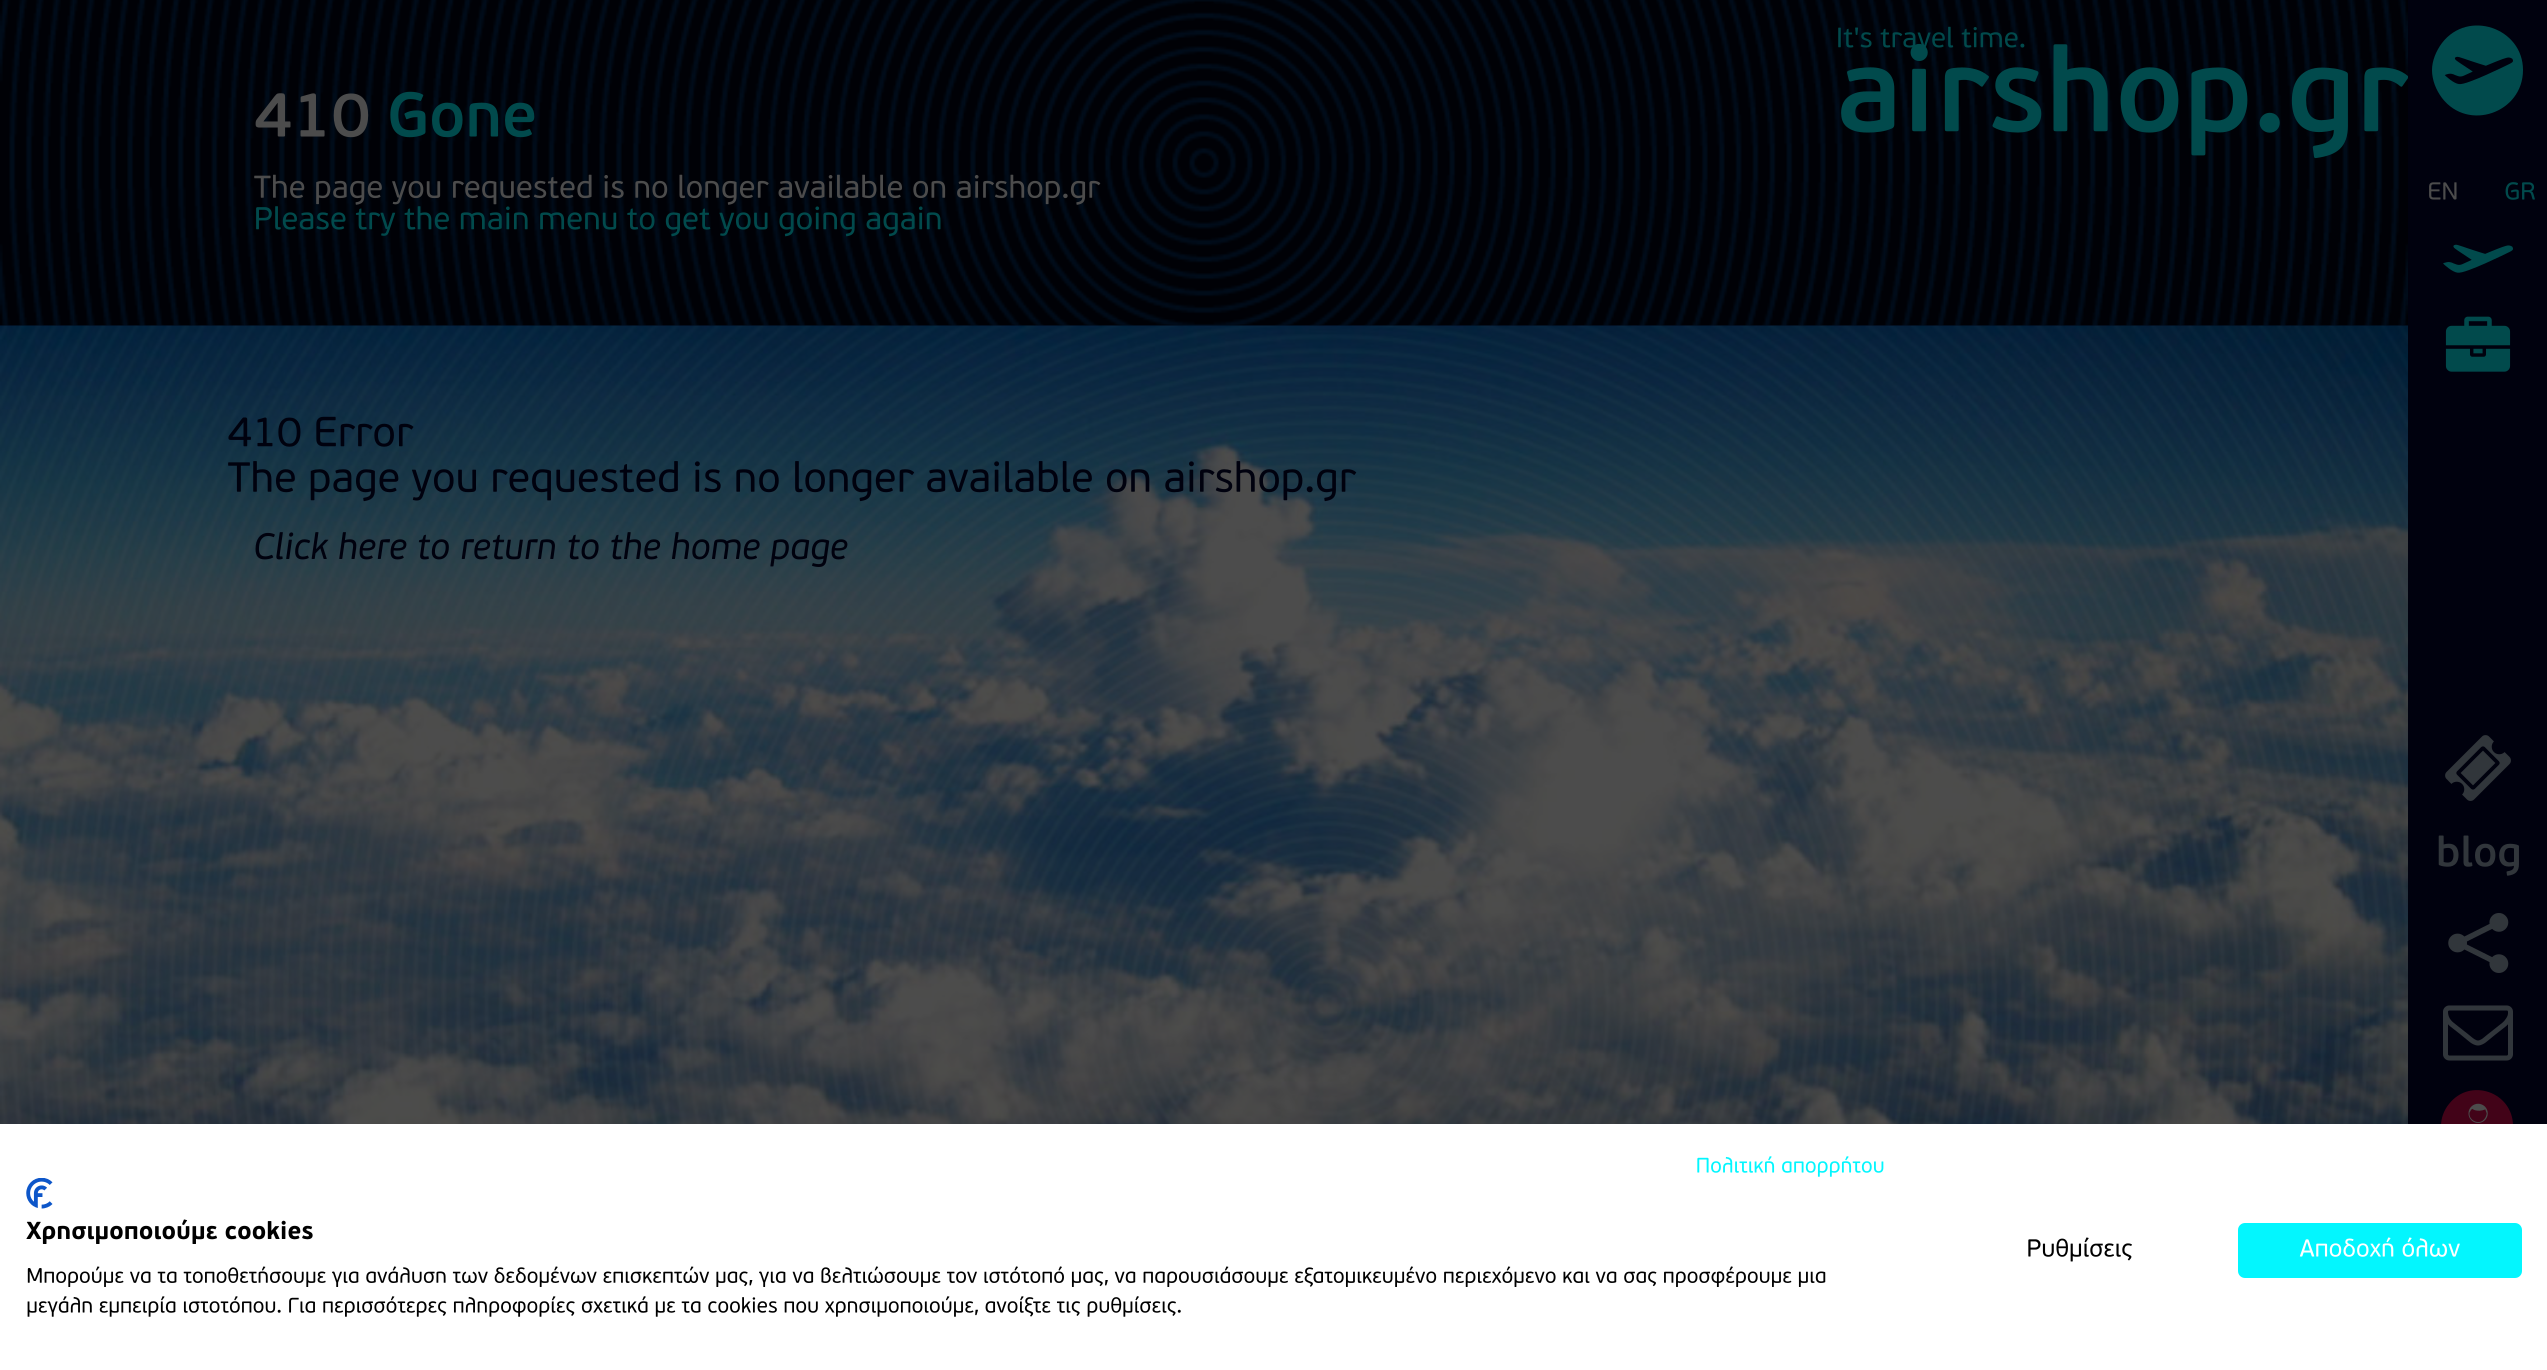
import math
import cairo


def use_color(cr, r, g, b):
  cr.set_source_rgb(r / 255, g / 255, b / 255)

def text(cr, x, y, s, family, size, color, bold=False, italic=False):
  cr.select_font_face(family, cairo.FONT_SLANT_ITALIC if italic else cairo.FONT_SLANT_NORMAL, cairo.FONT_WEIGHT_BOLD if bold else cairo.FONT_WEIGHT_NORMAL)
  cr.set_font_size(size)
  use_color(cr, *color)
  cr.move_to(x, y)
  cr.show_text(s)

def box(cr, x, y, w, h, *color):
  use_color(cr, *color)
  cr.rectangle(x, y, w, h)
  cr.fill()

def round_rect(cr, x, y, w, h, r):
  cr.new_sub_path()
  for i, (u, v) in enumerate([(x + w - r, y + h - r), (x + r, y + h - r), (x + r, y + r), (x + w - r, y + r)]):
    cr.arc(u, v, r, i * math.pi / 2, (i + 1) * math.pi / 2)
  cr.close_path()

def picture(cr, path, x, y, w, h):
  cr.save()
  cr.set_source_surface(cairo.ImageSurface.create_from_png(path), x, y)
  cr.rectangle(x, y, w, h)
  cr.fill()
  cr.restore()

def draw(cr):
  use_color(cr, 0, 1, 14)
  cr.paint()
  picture(cr, "img_01.png", 0, 0, 2408, 326)
  picture(cr, "img_02.png", 255, 93, 114, 45)
  picture(cr, "img_03.png", 390, 91, 145, 47)
  picture(cr, "img_04.png", 254, 174, 847, 31)
  picture(cr, "img_05.png", 256, 206, 685, 31)
  picture(cr, "img_06.png", 0, 325, 2408, 799)
  picture(cr, "img_07.png", 228, 416, 186, 31)
  picture(cr, "img_08.png", 228, 461, 1129, 41)
  picture(cr, "img_11.png", 1841, 43, 567, 116)
  picture(cr, "img_09.png", 1838, 26, 187, 22)
  use_color(cr, 1, 74, 76)
  cr.new_path()
  cr.move_to(2523, 70)
  cr.curve_to(2523, 113, 2468, 132, 2442, 98)
  cr.curve_to(2436, 90, 2432, 80, 2432, 70)
  cr.curve_to(2432, 61, 2436, 51, 2442, 43)
  cr.curve_to(2468, 9, 2523, 28, 2523, 70)
  cr.close_path()
  cr.fill()
  picture(cr, "img_10.png", 2444, 56, 69, 29)
  picture(cr, "img_12.png", 2429, 182, 28, 18)
  picture(cr, "img_13.png", 2505, 182, 30, 18)
  picture(cr, "img_14.png", 2443, 244, 70, 29)
  picture(cr, "img_15.png", 2445, 316, 66, 56)
  picture(cr, "img_16.png", 2445, 735, 66, 66)
  picture(cr, "img_17.png", 2438, 835, 81, 41)
  picture(cr, "img_18.png", 2448, 913, 61, 60)
  picture(cr, "img_19.png", 2443, 1005, 70, 56)
  use_color(cr, 66, 3, 24)
  cr.new_path()
  cr.move_to(2513, 1126)
  cr.curve_to(2513, 1160, 2470, 1175, 2449, 1148)
  cr.curve_to(2444, 1142, 2441, 1134, 2441, 1126)
  cr.curve_to(2441, 1118, 2444, 1110, 2449, 1104)
  cr.curve_to(2470, 1077, 2513, 1092, 2513, 1126)
  cr.close_path()
  cr.fill()
  picture(cr, "img_20.png", 2468, 1103, 20, 20)
  box(cr, 0, 1124, 2547, 246, 255, 255, 255)
  picture(cr, "img_21.png", 1697, 1156, 187, 21)
  picture(cr, "img_22.png", 26, 1178, 27, 31)
  picture(cr, "img_23.png", 26, 1219, 287, 25)
  picture(cr, "img_24.png", 27, 1266, 1799, 21)
  picture(cr, "img_25.png", 27, 1296, 1154, 21)
  picture(cr, "img_26.png", 2028, 1237, 104, 25)
  use_color(cr, 3, 246, 254)
  round_rect(cr, 2239, 1224, 282, 53, 6)
  cr.fill_preserve()
  cr.stroke()
  picture(cr, "img_27.png", 2299, 1237, 161, 20)
  text(cr, 253, 559, "Click here to return to the home page", "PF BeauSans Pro", 36.75, (0, 1, 14), italic=True)


surface = cairo.ImageSurface(cairo.FORMAT_RGB24, 2547, 1370)
cr = cairo.Context(surface)
options = cairo.FontOptions()
options.set_hint_metrics(cairo.HINT_METRICS_OFF)
options.set_hint_style(cairo.HINT_STYLE_NONE)
cr.set_font_options(options)
cr.set_miter_limit(4)
draw(cr)
surface.write_to_png("out.png")
